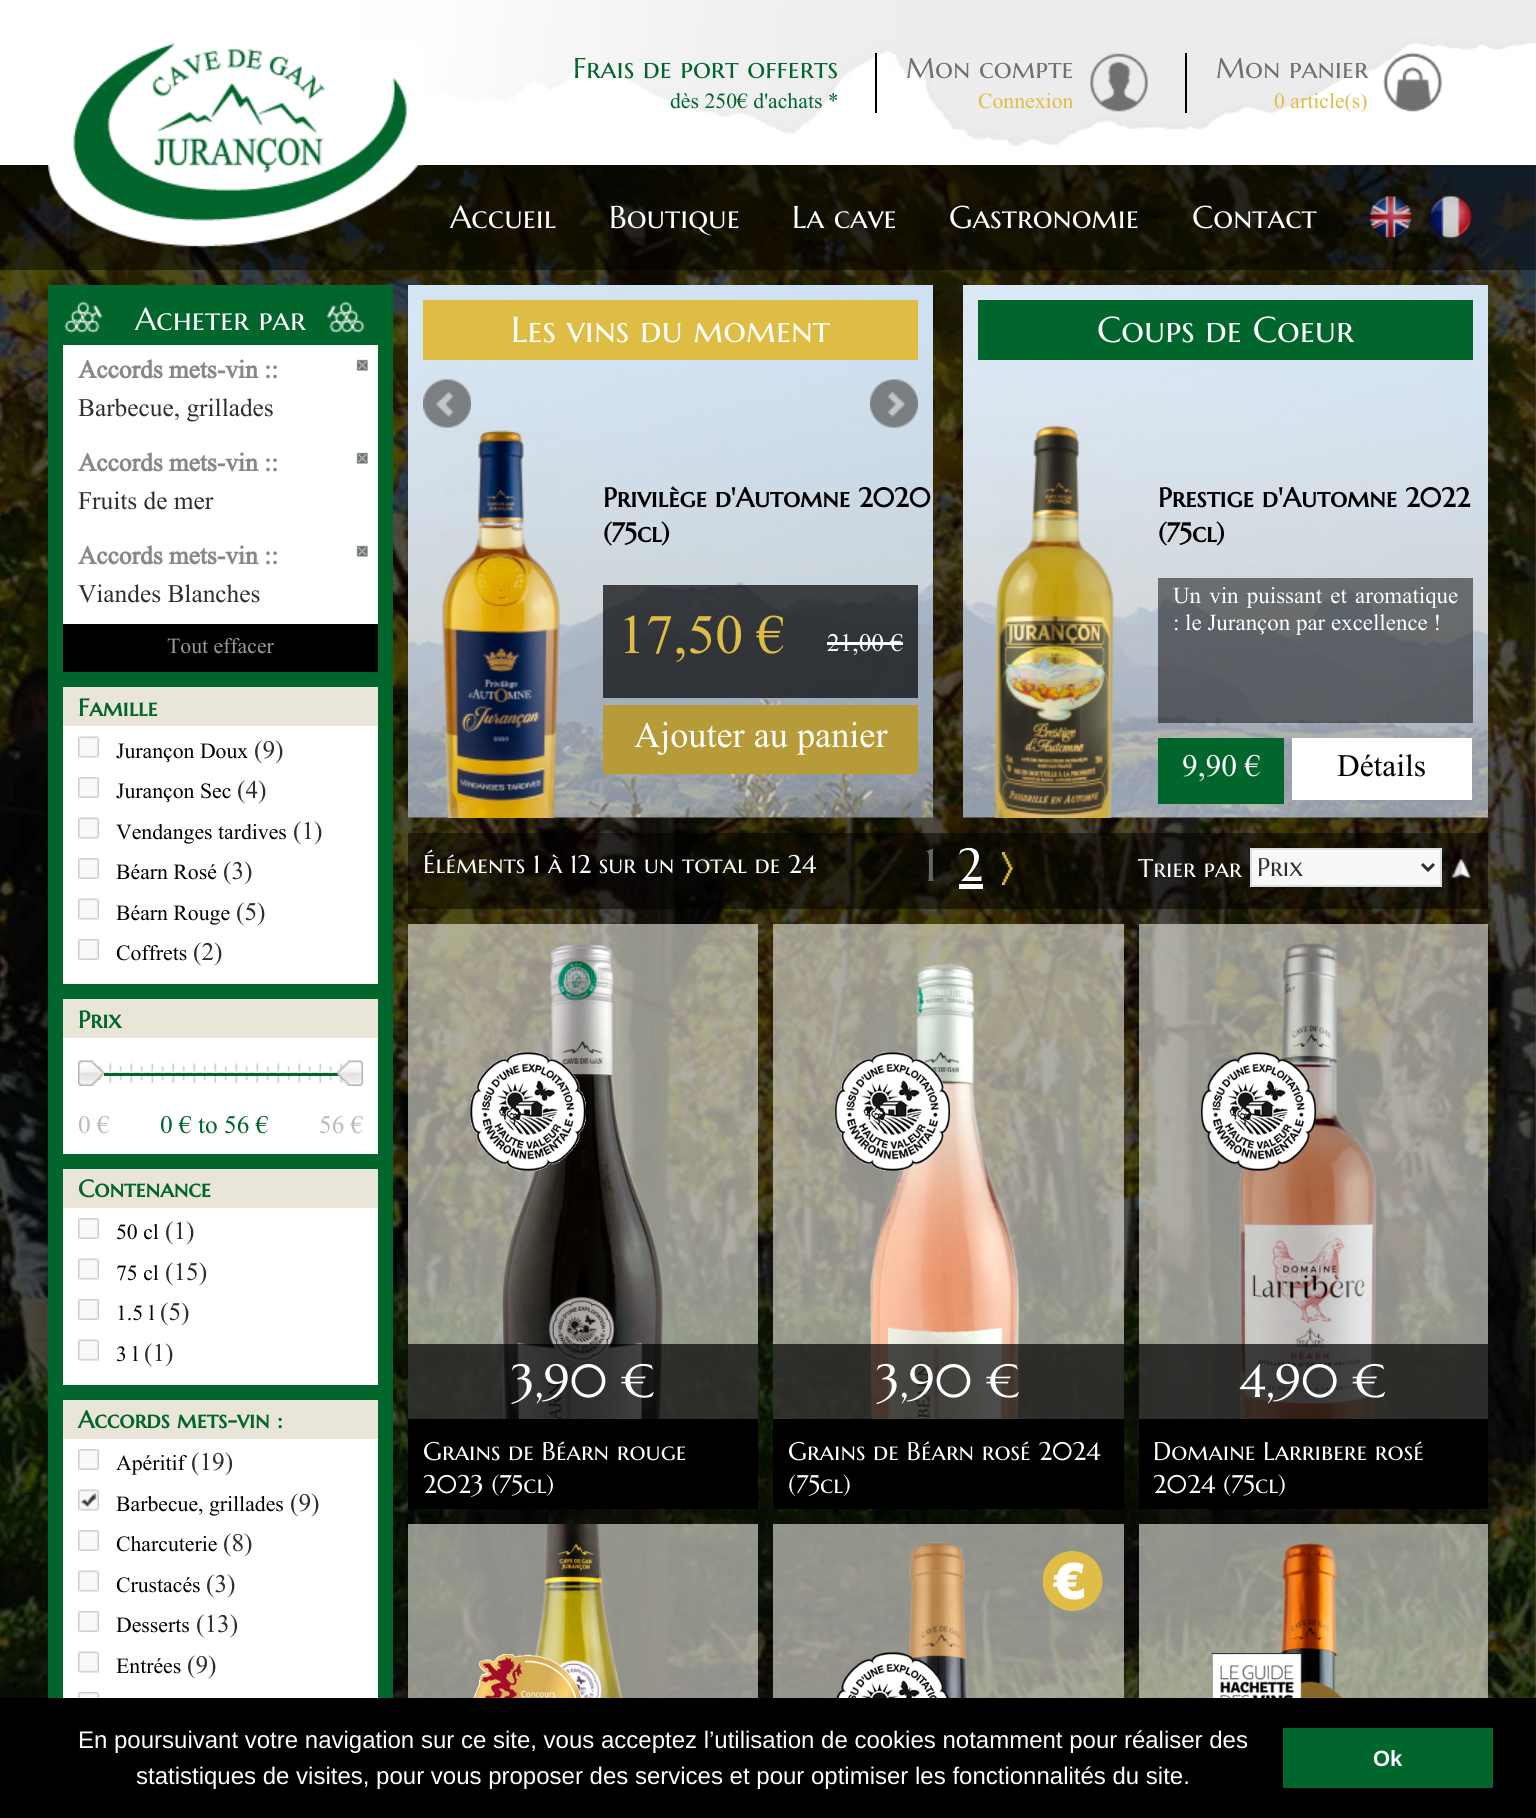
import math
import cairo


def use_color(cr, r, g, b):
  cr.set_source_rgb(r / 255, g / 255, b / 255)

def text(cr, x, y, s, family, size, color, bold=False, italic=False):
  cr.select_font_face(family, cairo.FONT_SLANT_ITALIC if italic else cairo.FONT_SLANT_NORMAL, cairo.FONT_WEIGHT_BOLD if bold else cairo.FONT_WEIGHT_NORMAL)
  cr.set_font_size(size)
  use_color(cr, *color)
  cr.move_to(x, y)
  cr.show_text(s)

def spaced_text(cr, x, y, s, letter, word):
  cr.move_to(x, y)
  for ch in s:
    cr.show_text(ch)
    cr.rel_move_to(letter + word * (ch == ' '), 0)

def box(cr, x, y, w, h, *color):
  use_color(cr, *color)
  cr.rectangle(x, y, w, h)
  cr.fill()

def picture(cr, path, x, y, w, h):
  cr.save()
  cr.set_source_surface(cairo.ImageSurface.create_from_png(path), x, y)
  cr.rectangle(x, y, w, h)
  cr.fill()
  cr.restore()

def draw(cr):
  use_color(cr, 255, 255, 255)
  cr.paint()
  picture(cr, "img_01.png", 0, 165, 1536, 1533)
  cr.set_source_rgba(0, 0, 0, 0.5)
  cr.rectangle(0, 165, 1536, 105)
  cr.fill()
  picture(cr, "img_02.png", 0, 0, 1536, 165)
  picture(cr, "img_03.png", 48, 43, 375, 205)
  box(cr, 875, 53, 2, 60, 0, 0, 0)
  picture(cr, "img_04.png", 1090, 53, 58, 59)
  box(cr, 1185, 53, 2, 60, 0, 0, 0)
  picture(cr, "img_05.png", 1383, 52, 59, 60)
  picture(cr, "img_06.png", 1369, 195, 44, 44)
  picture(cr, "img_07.png", 1429, 195, 44, 44)
  box(cr, 48, 285, 345, 1413, 0, 102, 44)
  picture(cr, "img_08.png", 64, 301, 301, 33)
  box(cr, 63, 345, 315, 279, 255, 255, 255)
  picture(cr, "img_09.png", 356, 359, 12, 12)
  picture(cr, "img_09.png", 356, 452, 12, 12)
  picture(cr, "img_09.png", 356, 545, 12, 12)
  box(cr, 63, 624, 315, 48, 0, 0, 0)
  box(cr, 63, 687, 315, 39, 233, 229, 217)
  box(cr, 63, 726, 315, 258, 255, 255, 255)
  picture(cr, "img_10.png", 78, 736, 21, 22)
  picture(cr, "img_11.png", 78, 777, 21, 21)
  picture(cr, "img_10.png", 78, 817, 21, 22)
  picture(cr, "img_11.png", 78, 858, 21, 21)
  picture(cr, "img_10.png", 78, 898, 21, 22)
  picture(cr, "img_11.png", 78, 939, 21, 21)
  box(cr, 63, 999, 315, 39, 233, 229, 217)
  box(cr, 63, 1038, 315, 116, 255, 255, 255)
  picture(cr, "img_12.png", 98, 1063, 245, 21)
  picture(cr, "img_13.png", 78, 1060, 26, 26)
  box(cr, 104, 1073, 236, 3, 0, 102, 44)
  picture(cr, "img_14.png", 337, 1060, 26, 26)
  box(cr, 63, 1169, 315, 39, 233, 229, 217)
  box(cr, 63, 1208, 315, 177, 255, 255, 255)
  picture(cr, "img_11.png", 78, 1218, 21, 21)
  picture(cr, "img_10.png", 78, 1258, 21, 22)
  picture(cr, "img_11.png", 78, 1299, 21, 21)
  picture(cr, "img_10.png", 78, 1339, 21, 22)
  box(cr, 63, 1400, 315, 39, 233, 229, 217)
  box(cr, 63, 1439, 315, 259, 255, 255, 255)
  picture(cr, "img_11.png", 78, 1449, 21, 21)
  picture(cr, "img_15.png", 78, 1489, 21, 22)
  picture(cr, "img_11.png", 78, 1530, 21, 21)
  picture(cr, "img_10.png", 78, 1570, 21, 22)
  picture(cr, "img_11.png", 78, 1611, 21, 21)
  picture(cr, "img_10.png", 78, 1651, 21, 22)
  picture(cr, "img_16.png", 78, 1692, 21, 6)
  picture(cr, "img_17.png", 408, 285, 525, 533)
  box(cr, 423, 300, 495, 60, 223, 189, 69)
  picture(cr, "img_18.png", 423, 379, 48, 49)
  picture(cr, "img_19.png", 870, 379, 48, 49)
  picture(cr, "img_20.png", 441, 430, 119, 388)
  cr.set_source_rgba(0, 0, 0, 0.7)
  cr.rectangle(603, 585, 315, 113)
  cr.fill()
  box(cr, 827, 642, 76, 3, 255, 255, 255)
  box(cr, 603, 705, 315, 69, 183, 155, 57)
  picture(cr, "img_21.png", 963, 285, 525, 533)
  box(cr, 978, 300, 495, 60, 0, 102, 44)
  picture(cr, "img_22.png", 994, 425, 120, 393)
  cr.set_source_rgba(0, 0, 0, 0.5)
  cr.rectangle(1158, 578, 315, 145)
  cr.fill()
  box(cr, 1158, 738, 126, 66, 0, 102, 44)
  box(cr, 1292, 738, 180, 62, 255, 255, 255)
  cr.set_source_rgba(0, 0, 0, 0.5)
  cr.rectangle(408, 833, 1080, 76)
  cr.fill()
  box(cr, 959, 884, 24, 5, 255, 255, 255)
  picture(cr, "img_23.png", 1002, 852, 11, 33)
  use_color(cr, 248, 248, 248)
  cr.rectangle(1251, 849, 190, 37)
  cr.fill_preserve()
  use_color(cr, 220, 223, 229)
  cr.stroke()
  cr.new_path()
  cr.move_to(1422, 864)
  cr.line_to(1428, 870)
  cr.line_to(1434, 864)
  use_color(cr, 44, 47, 51)
  cr.set_line_width(3)
  cr.stroke()
  picture(cr, "img_24.png", 1451, 859, 20, 19)
  cr.set_source_rgba(0.933, 0.933, 0.894, 0.6)
  cr.rectangle(408, 924, 350, 495)
  cr.fill()
  picture(cr, "img_25.png", 501, 944, 163, 475)
  picture(cr, "img_26.png", 470, 1052, 116, 119)
  cr.set_source_rgba(0, 0, 0, 0.7)
  cr.rectangle(408, 1344, 350, 75)
  cr.fill()
  box(cr, 408, 1419, 350, 90, 0, 0, 0)
  cr.set_source_rgba(0.933, 0.933, 0.894, 0.6)
  cr.rectangle(773, 924, 351, 495)
  cr.fill()
  picture(cr, "img_27.png", 869, 964, 151, 455)
  picture(cr, "img_28.png", 835, 1052, 116, 119)
  cr.set_source_rgba(0, 0, 0, 0.7)
  cr.rectangle(773, 1344, 351, 75)
  cr.fill()
  box(cr, 773, 1419, 351, 90, 0, 0, 0)
  cr.set_source_rgba(0.933, 0.933, 0.894, 0.6)
  cr.rectangle(1139, 924, 349, 495)
  cr.fill()
  picture(cr, "img_29.png", 1239, 943, 138, 476)
  picture(cr, "img_30.png", 1201, 1052, 116, 119)
  cr.set_source_rgba(0, 0, 0, 0.7)
  cr.rectangle(1139, 1344, 349, 75)
  cr.fill()
  box(cr, 1139, 1419, 349, 90, 0, 0, 0)
  cr.set_source_rgba(0.933, 0.933, 0.894, 0.6)
  cr.rectangle(408, 1524, 350, 174)
  cr.fill()
  picture(cr, "img_31.png", 534, 1524, 89, 174)
  picture(cr, "img_32.png", 473, 1654, 109, 44)
  cr.rectangle(773, 1524, 351, 174)
  cr.fill()
  picture(cr, "img_33.png", 908, 1542, 60, 156)
  picture(cr, "img_34.png", 1043, 1551, 60, 60)
  picture(cr, "img_35.png", 836, 1652, 113, 46)
  cr.rectangle(1139, 1524, 349, 174)
  cr.fill()
  picture(cr, "img_37.png", 1279, 1543, 63, 155)
  picture(cr, "img_36.png", 1211, 1653, 91, 45)
  box(cr, 0, 1698, 1536, 120, 0, 0, 0)
  box(cr, 1283, 1728, 210, 60, 0, 102, 44)
  text(cr, 573, 78, "Frais de port offerts", "Marcellus SC", 28.5, (0, 102, 44))
  text(cr, 670, 108, "dès 250€ d'achats *", "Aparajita", 27, (0, 102, 44))
  text(cr, 906, 78, "Mon compte", "Marcellus SC", 28.5, (112, 112, 112))
  text(cr, 978, 108, "Connexion", "Aparajita", 27, (223, 189, 69))
  text(cr, 1216, 78, "Mon panier", "Marcellus SC", 28.5, (112, 112, 112))
  text(cr, 1274, 108, "0 article(s)", "Aparajita", 27, (223, 189, 69))
  text(cr, 450, 228, "Accueil", "Marcellus SC", 31.5, (255, 255, 255))
  text(cr, 609, 228, "Boutique", "Marcellus SC", 31.5, (255, 255, 255))
  text(cr, 792, 228, "La cave", "Marcellus SC", 31.5, (255, 255, 255))
  text(cr, 949, 228, "Gastronomie", "Marcellus SC", 31.5, (255, 255, 255))
  text(cr, 1192, 228, "Contact", "Marcellus SC", 31.5, (255, 255, 255))
  text(cr, 135, 330, "Acheter par", "Marcellus SC", 31.5, (255, 255, 255))
  text(cr, 78, 378, "Accords mets-vin ::", "Aparajita", 31.5, (136, 136, 136), bold=True)
  text(cr, 78, 416, "Barbecue, grillades", "Aparajita", 31.5, (44, 47, 51))
  text(cr, 78, 471, "Accords mets-vin ::", "Aparajita", 31.5, (136, 136, 136), bold=True)
  text(cr, 78, 509, "Fruits de mer", "Aparajita", 31.5, (44, 47, 51))
  text(cr, 78, 564, "Accords mets-vin ::", "Aparajita", 31.5, (136, 136, 136), bold=True)
  text(cr, 78, 602, "Viandes Blanches", "Aparajita", 31.5, (44, 47, 51))
  text(cr, 167, 653, "Tout effacer", "Aparajita", 27, (153, 153, 153))
  text(cr, 78, 716, "Famille", "Marcellus SC", 24, (0, 102, 44), bold=True)
  text(cr, 116, 758, "Jurançon Doux", "Aparajita", 27, (0, 0, 0))
  text(cr, 254, 758, "(9)", "Aparajita", 31.5, (44, 47, 51))
  text(cr, 116, 798, "Jurançon Sec", "Aparajita", 27, (0, 0, 0))
  text(cr, 237, 798, "(4)", "Aparajita", 31.5, (44, 47, 51))
  text(cr, 116, 839, "Vendanges tardives", "Aparajita", 27, (0, 0, 0))
  text(cr, 293, 839, "(1)", "Aparajita", 31.5, (44, 47, 51))
  text(cr, 116, 879, "Béarn Rosé", "Aparajita", 27, (0, 0, 0))
  text(cr, 223, 879, "(3)", "Aparajita", 31.5, (44, 47, 51))
  text(cr, 116, 920, "Béarn Rouge", "Aparajita", 27, (0, 0, 0))
  text(cr, 236, 920, "(5)", "Aparajita", 31.5, (44, 47, 51))
  text(cr, 116, 960, "Coffrets", "Aparajita", 27, (0, 0, 0))
  text(cr, 193, 960, "(2)", "Aparajita", 31.5, (44, 47, 51))
  text(cr, 78, 1028, "Prix", "Marcellus SC", 24, (0, 102, 44), bold=True)
  text(cr, 78, 1133, "0 €", "Aparajita", 31.5, (186, 187, 187))
  text(cr, 160, 1133, "0 € to 56 €", "Aparajita", 31.5, (0, 102, 44))
  text(cr, 319, 1133, "56 €", "Aparajita", 31.5, (186, 187, 187))
  text(cr, 78, 1197, "Contenance", "Marcellus SC", 24, (0, 102, 44), bold=True)
  text(cr, 116, 1239, "50 cl", "Aparajita", 27, (0, 0, 0))
  text(cr, 165, 1239, "(1)", "Aparajita", 31.5, (44, 47, 51))
  text(cr, 116, 1280, "75 cl", "Aparajita", 27, (0, 0, 0))
  text(cr, 165, 1280, "(15)", "Aparajita", 31.5, (44, 47, 51))
  text(cr, 116, 1320, "1.5 l", "Aparajita", 27, (0, 0, 0))
  text(cr, 160, 1320, "(5)", "Aparajita", 31.5, (44, 47, 51))
  text(cr, 116, 1361, "3 l", "Aparajita", 27, (0, 0, 0))
  text(cr, 144, 1361, "(1)", "Aparajita", 31.5, (44, 47, 51))
  text(cr, 78, 1428, "Accords mets-vin :", "Marcellus SC", 24, (0, 102, 44), bold=True)
  text(cr, 116, 1470, "Apéritif", "Aparajita", 27, (0, 0, 0))
  text(cr, 191, 1470, "(19)", "Aparajita", 31.5, (44, 47, 51))
  text(cr, 116, 1511, "Barbecue, grillades", "Aparajita", 27, (0, 0, 0))
  text(cr, 290, 1511, "(9)", "Aparajita", 31.5, (44, 47, 51))
  text(cr, 116, 1551, "Charcuterie", "Aparajita", 27, (0, 0, 0))
  text(cr, 223, 1551, "(8)", "Aparajita", 31.5, (44, 47, 51))
  text(cr, 116, 1592, "Crustacés", "Aparajita", 27, (0, 0, 0))
  text(cr, 206, 1592, "(3)", "Aparajita", 31.5, (44, 47, 51))
  text(cr, 116, 1632, "Desserts", "Aparajita", 27, (0, 0, 0))
  text(cr, 196, 1632, "(13)", "Aparajita", 31.5, (44, 47, 51))
  text(cr, 116, 1673, "Entrées", "Aparajita", 27, (0, 0, 0))
  text(cr, 187, 1673, "(9)", "Aparajita", 31.5, (44, 47, 51))
  text(cr, 511, 342, "Les vins du moment", "Marcellus SC", 36, (255, 255, 255))
  text(cr, 603, 507, "Privilège d'Automne 2020", "Marcellus SC", 27, (0, 0, 0), bold=True)
  text(cr, 603, 542, "(75cl)", "Marcellus SC", 27, (0, 0, 0), bold=True)
  text(cr, 618, 653, "17,50 €", "Aparajita", 69, (223, 189, 69))
  text(cr, 827, 651, "21,00 €", "Aparajita", 31.5, (255, 255, 255))
  text(cr, 634, 747, "Ajouter au panier", "Aparajita", 45, (255, 255, 255))
  text(cr, 1097, 342, "Coups de Coeur", "Marcellus SC", 36, (255, 255, 255))
  text(cr, 1158, 507, "Prestige d'Automne 2022", "Marcellus SC", 27, (0, 0, 0), bold=True)
  text(cr, 1158, 542, "(75cl)", "Marcellus SC", 27, (0, 0, 0), bold=True)
  cr.select_font_face("Aparajita")
  cr.set_font_size(28.5)
  use_color(cr, 255, 255, 255)
  spaced_text(cr, 1173, 603, "Un vin puissant et aromatique", 0, 2.5)
  text(cr, 1173, 630, ": le Jurançon par excellence !", "Aparajita", 28.5, (255, 255, 255))
  text(cr, 1182, 776, "9,90 €", "Aparajita", 39, (255, 255, 255))
  text(cr, 1337, 776, "Détails", "Aparajita", 39, (0, 0, 0))
  text(cr, 423, 873, "Éléments 1 à 12 sur un total de 24", "Marcellus SC", 25.5, (255, 255, 255))
  text(cr, 924, 881, "1", "Marcellus SC", 46.5, (102, 102, 102))
  text(cr, 958, 881, "2", "Marcellus SC", 46.5, (255, 255, 255))
  text(cr, 1138, 877, "Trier par", "Marcellus SC", 25.5, (255, 255, 255))
  text(cr, 1257, 876, "Prix", "Marcellus SC", 25.5, (44, 47, 51))
  text(cr, 511, 1397, "3,90 €", "Marcellus SC", 46.5, (255, 255, 255))
  text(cr, 423, 1460, "Grains de Béarn rouge", "Marcellus SC", 25.5, (255, 255, 255))
  text(cr, 423, 1493, "2023 (75cl)", "Marcellus SC", 25.5, (255, 255, 255))
  text(cr, 876, 1397, "3,90 €", "Marcellus SC", 46.5, (255, 255, 255))
  text(cr, 788, 1460, "Grains de Béarn rosé 2024", "Marcellus SC", 25.5, (255, 255, 255))
  text(cr, 788, 1493, "(75cl)", "Marcellus SC", 25.5, (255, 255, 255))
  text(cr, 1239, 1397, "4,90 €", "Marcellus SC", 46.5, (255, 255, 255))
  text(cr, 1153, 1460, "Domaine Larribere rosé", "Marcellus SC", 25.5, (255, 255, 255))
  text(cr, 1153, 1493, "2024 (75cl)", "Marcellus SC", 25.5, (255, 255, 255))
  text(cr, 78, 1748, "En poursuivant votre navigation sur ce site, vous acceptez l’utilisation de cookies notamment pour réaliser des", "Liberation Sans", 24, (255, 255, 255))
  text(cr, 136, 1784, "statistiques de visites, pour vous proposer des services et pour optimiser les fonctionnalités du site.", "Liberation Sans", 24, (255, 255, 255))
  text(cr, 1373, 1766, "Ok", "Liberation Sans", 22, (255, 255, 255), bold=True)


surface = cairo.ImageSurface(cairo.FORMAT_RGB24, 1536, 1818)
cr = cairo.Context(surface)
options = cairo.FontOptions()
options.set_hint_metrics(cairo.HINT_METRICS_OFF)
options.set_hint_style(cairo.HINT_STYLE_NONE)
cr.set_font_options(options)
cr.set_miter_limit(4)
draw(cr)
surface.write_to_png("out.png")
